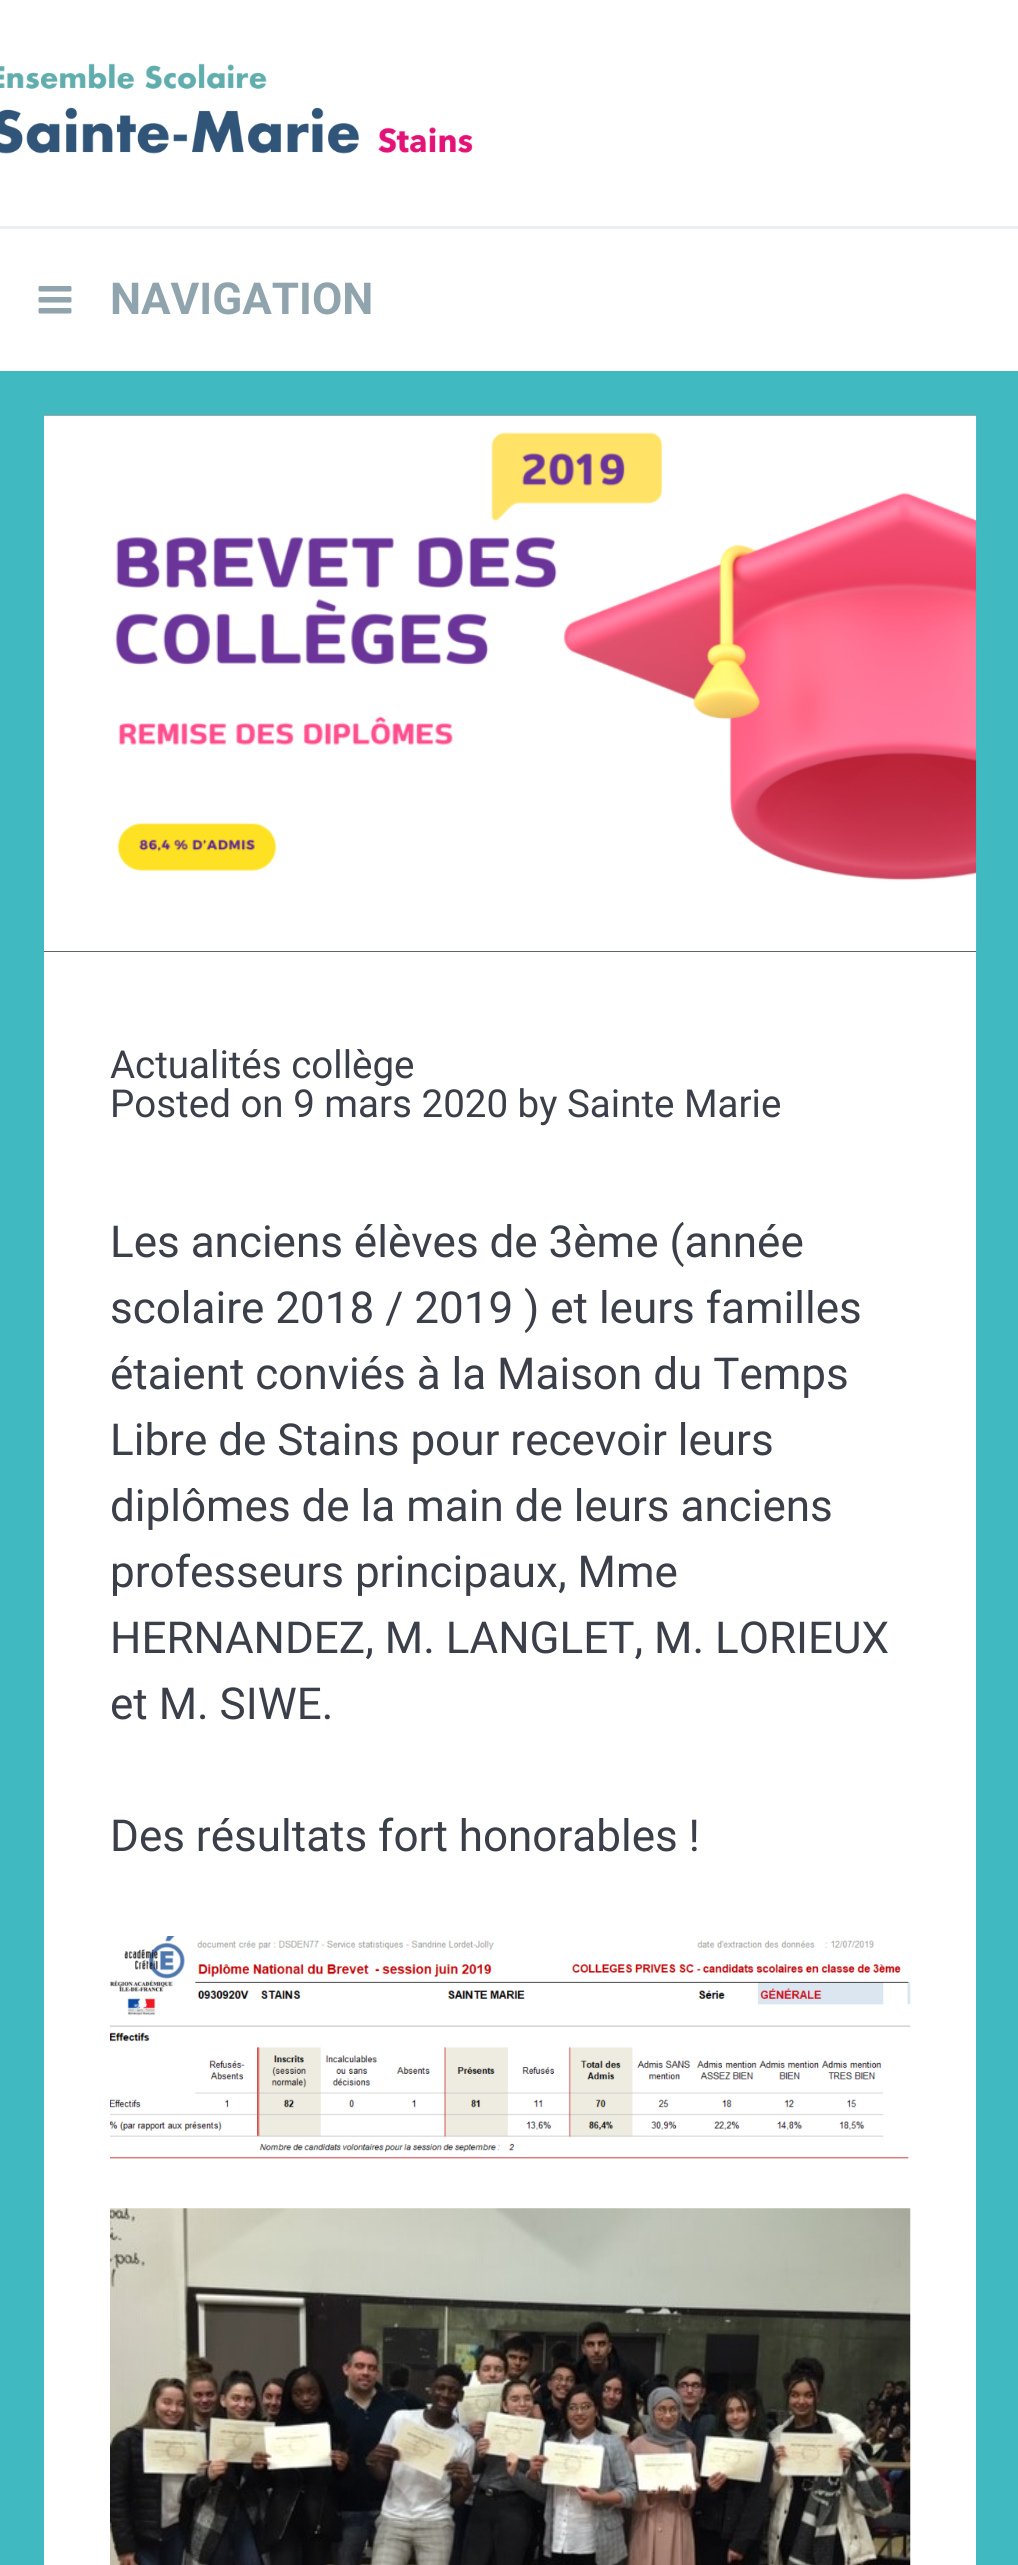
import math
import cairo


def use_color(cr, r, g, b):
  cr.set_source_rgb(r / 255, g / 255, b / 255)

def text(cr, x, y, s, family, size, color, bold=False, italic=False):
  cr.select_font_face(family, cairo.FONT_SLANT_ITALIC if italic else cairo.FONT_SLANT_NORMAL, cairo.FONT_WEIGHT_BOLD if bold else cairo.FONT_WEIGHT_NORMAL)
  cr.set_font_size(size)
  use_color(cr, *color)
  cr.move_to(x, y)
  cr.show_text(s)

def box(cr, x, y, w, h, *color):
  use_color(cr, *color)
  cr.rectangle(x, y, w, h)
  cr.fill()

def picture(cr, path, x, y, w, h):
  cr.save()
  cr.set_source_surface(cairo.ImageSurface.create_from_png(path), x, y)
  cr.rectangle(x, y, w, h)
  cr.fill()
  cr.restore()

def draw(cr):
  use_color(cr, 65, 185, 193)
  cr.paint()
  box(cr, 0, 0, 1018, 226, 255, 255, 255)
  picture(cr, "img_01.png", 0, 63, 473, 91)
  box(cr, 0, 229, 1018, 142, 255, 255, 255)
  box(cr, 0, 226, 1018, 3, 236, 239, 241)
  picture(cr, "img_02.png", 38, 286, 34, 28)
  box(cr, 44, 952, 932, 1613, 255, 255, 255)
  box(cr, 44, 415, 932, 537, 38, 50, 56)
  picture(cr, "img_03.png", 44, 415, 933, 537)
  picture(cr, "img_04.png", 110, 1936, 801, 223)
  picture(cr, "img_05.png", 110, 2208, 801, 357)
  text(cr, 110, 314, "NAVIGATION", "Roboto", 44, (144, 164, 174), bold=True)
  text(cr, 110, 1078, "Actualités collège", "Roboto", 38.5, (59, 63, 73))
  text(cr, 110, 1117, "Posted on 9 mars 2020 by Sainte Marie", "Roboto", 38.5, (59, 63, 73))
  text(cr, 110, 1257, "Les anciens élèves de 3ème (année", "Roboto", 44, (59, 63, 73))
  text(cr, 110, 1323, "scolaire 2018 / 2019 ) et leurs familles", "Roboto", 44, (59, 63, 73))
  text(cr, 110, 1389, "étaient conviés à la Maison du Temps", "Roboto", 44, (59, 63, 73))
  text(cr, 110, 1455, "Libre de Stains pour recevoir leurs", "Roboto", 44, (59, 63, 73))
  text(cr, 110, 1521, "diplômes de la main de leurs anciens", "Roboto", 44, (59, 63, 73))
  text(cr, 110, 1587, "professeurs principaux, Mme", "Roboto", 44, (59, 63, 73))
  text(cr, 110, 1653, "HERNANDEZ, M. LANGLET, M. LORIEUX", "Roboto", 44, (59, 63, 73))
  text(cr, 110, 1719, "et M. SIWE.", "Roboto", 44, (59, 63, 73))
  text(cr, 110, 1851, "Des résultats fort honorables !", "Roboto", 44, (59, 63, 73))


surface = cairo.ImageSurface(cairo.FORMAT_RGB24, 1018, 2565)
cr = cairo.Context(surface)
options = cairo.FontOptions()
options.set_hint_metrics(cairo.HINT_METRICS_OFF)
options.set_hint_style(cairo.HINT_STYLE_NONE)
cr.set_font_options(options)
cr.set_miter_limit(4)
draw(cr)
surface.write_to_png("out.png")
